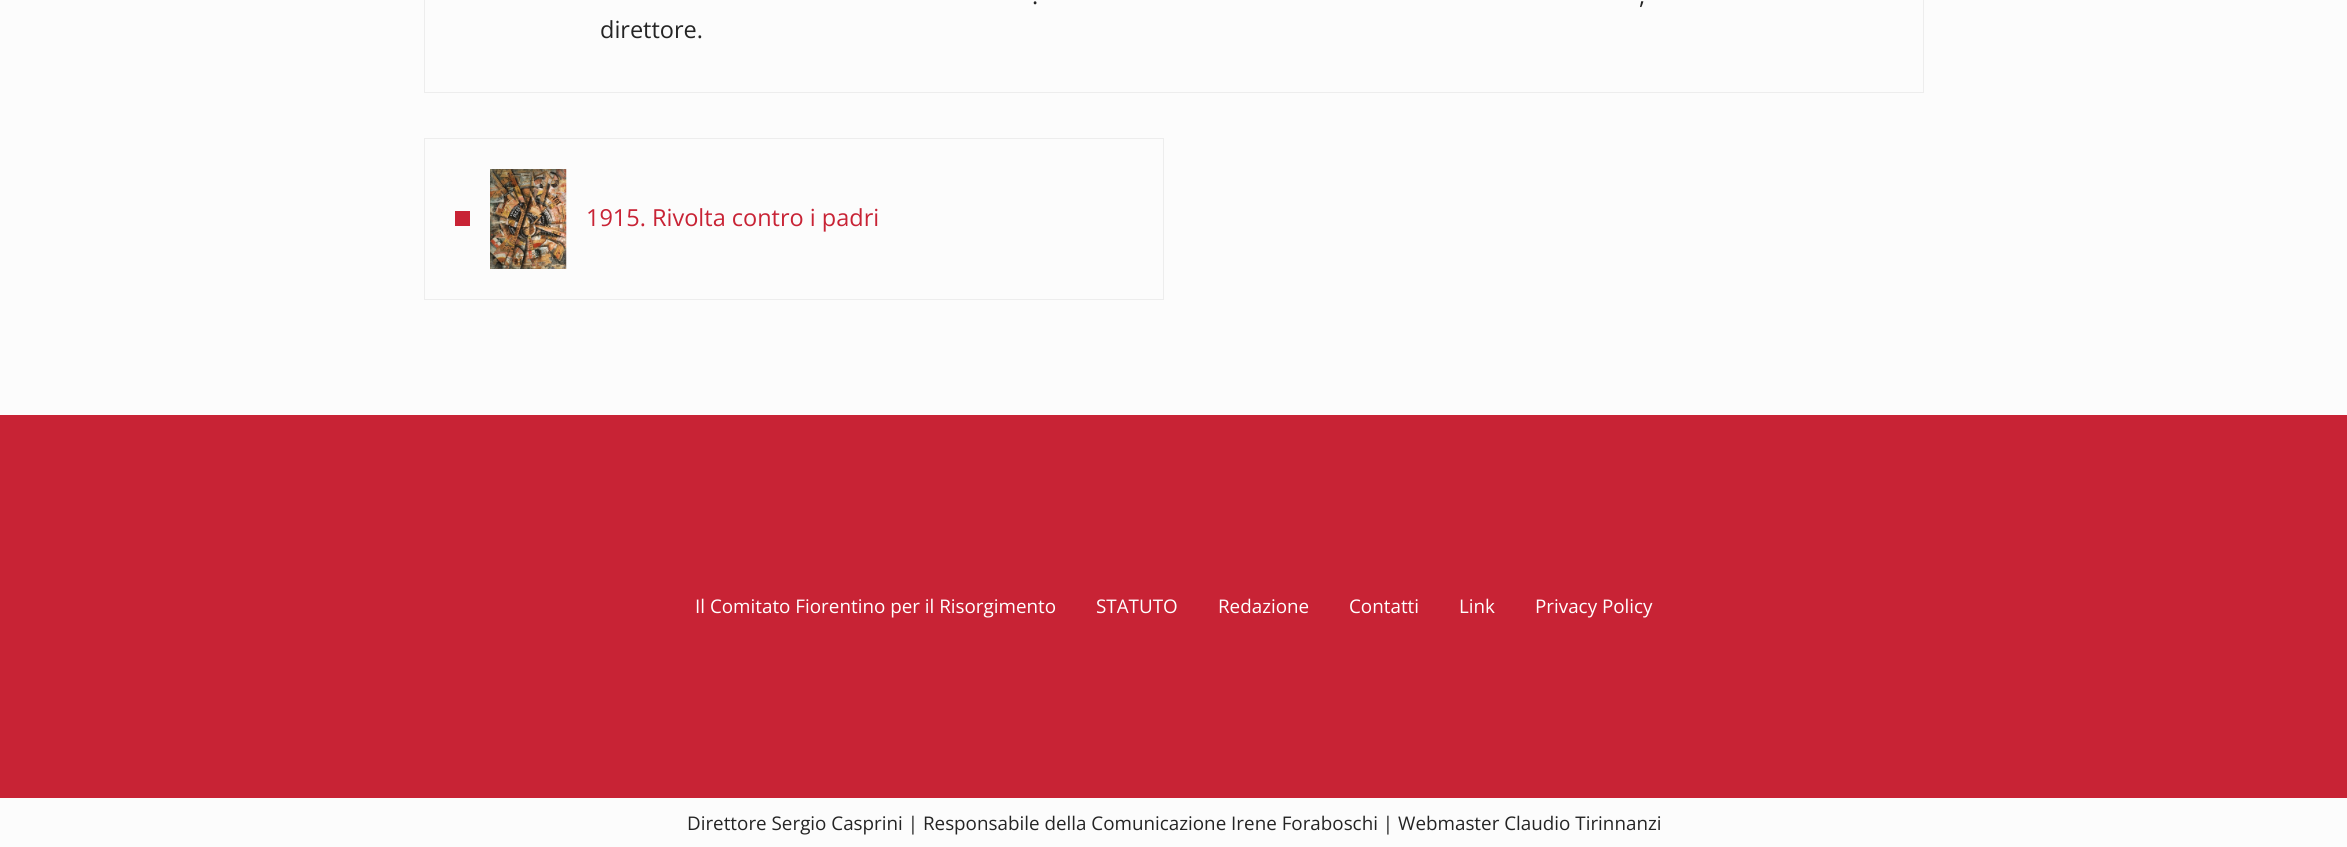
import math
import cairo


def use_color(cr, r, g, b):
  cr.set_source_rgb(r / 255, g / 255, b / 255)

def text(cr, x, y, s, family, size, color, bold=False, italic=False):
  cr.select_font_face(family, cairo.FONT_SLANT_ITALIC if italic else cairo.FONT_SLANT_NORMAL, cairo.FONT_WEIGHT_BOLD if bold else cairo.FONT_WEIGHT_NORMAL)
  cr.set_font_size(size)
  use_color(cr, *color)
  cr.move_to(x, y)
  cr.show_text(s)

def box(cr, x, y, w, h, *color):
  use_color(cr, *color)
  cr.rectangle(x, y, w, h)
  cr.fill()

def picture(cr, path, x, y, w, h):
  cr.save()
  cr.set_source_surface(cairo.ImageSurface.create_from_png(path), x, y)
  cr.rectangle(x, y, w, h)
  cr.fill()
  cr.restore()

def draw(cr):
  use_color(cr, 252, 252, 252)
  cr.paint()
  cr.rectangle(424.5, -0.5, 1499, 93)
  use_color(cr, 237, 237, 237)
  cr.set_line_width(1)
  cr.stroke()
  cr.rectangle(424.5, 138.5, 739, 161)
  cr.stroke()
  box(cr, 455, 211, 15, 15, 200, 35, 53)
  picture(cr, "img_01.png", 490, 169, 77, 100)
  box(cr, 0, 415, 2347, 383, 200, 35, 53)
  text(cr, 1032, 4, ".", "Open Sans", 23.5, (36, 36, 36))
  text(cr, 1639, 4, ",", "Open Sans", 23.5, (36, 36, 36))
  text(cr, 600, 38, "direttore.", "Open Sans", 23.5, (36, 36, 36))
  text(cr, 586, 226, "1915. Rivolta contro i padri", "Open Sans", 23.5, (200, 35, 53))
  text(cr, 695, 613, "Il Comitato Fiorentino per il Risorgimento", "Open Sans", 18.82, (255, 255, 255))
  text(cr, 1096, 613, "STATUTO", "Open Sans", 18.82, (255, 255, 255))
  text(cr, 1218, 613, "Redazione", "Open Sans", 18.82, (255, 255, 255))
  text(cr, 1349, 613, "Contatti", "Open Sans", 18.82, (255, 255, 255))
  text(cr, 1459, 613, "Link", "Open Sans", 18.82, (255, 255, 255))
  text(cr, 1535, 613, "Privacy Policy", "Open Sans", 18.82, (255, 255, 255))
  text(cr, 687, 830, "Direttore Sergio Casprini | Responsabile della Comunicazione Irene Foraboschi | Webmaster Claudio Tirinnanzi", "Open Sans", 18.82, (36, 36, 36))


surface = cairo.ImageSurface(cairo.FORMAT_RGB24, 2347, 847)
cr = cairo.Context(surface)
options = cairo.FontOptions()
options.set_hint_metrics(cairo.HINT_METRICS_OFF)
options.set_hint_style(cairo.HINT_STYLE_NONE)
cr.set_font_options(options)
cr.set_miter_limit(4)
draw(cr)
surface.write_to_png("out.png")
